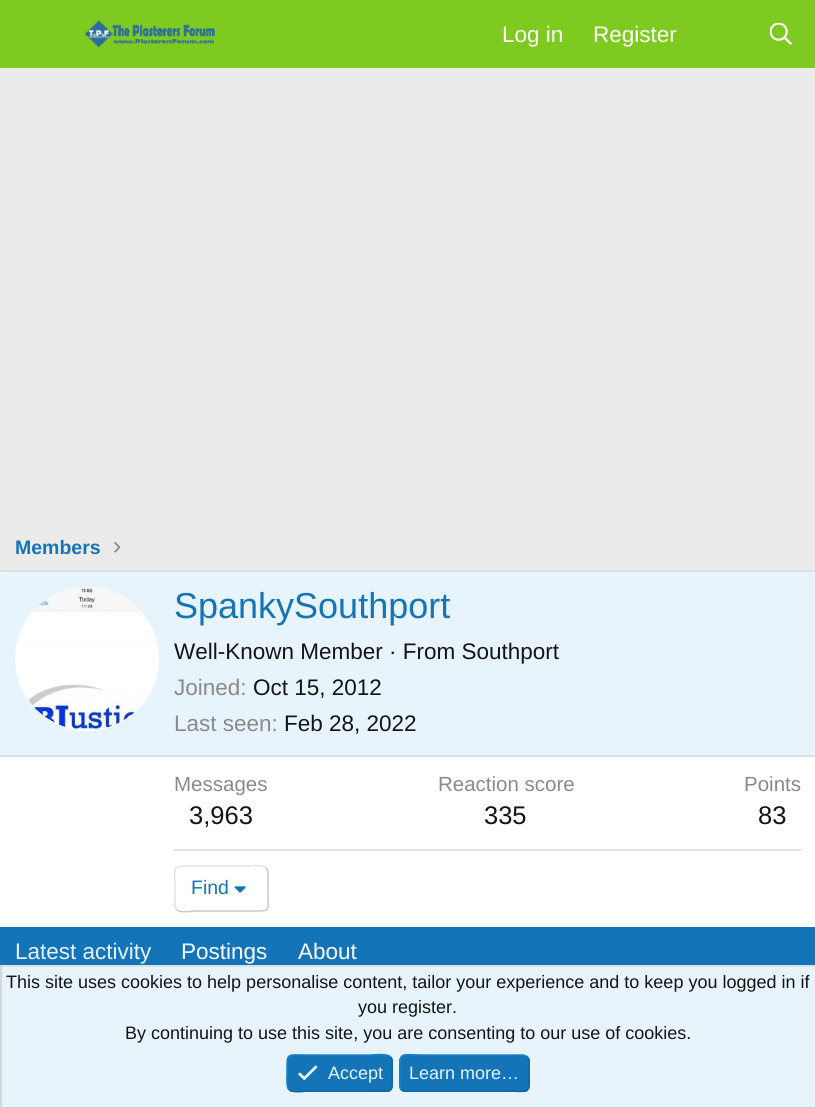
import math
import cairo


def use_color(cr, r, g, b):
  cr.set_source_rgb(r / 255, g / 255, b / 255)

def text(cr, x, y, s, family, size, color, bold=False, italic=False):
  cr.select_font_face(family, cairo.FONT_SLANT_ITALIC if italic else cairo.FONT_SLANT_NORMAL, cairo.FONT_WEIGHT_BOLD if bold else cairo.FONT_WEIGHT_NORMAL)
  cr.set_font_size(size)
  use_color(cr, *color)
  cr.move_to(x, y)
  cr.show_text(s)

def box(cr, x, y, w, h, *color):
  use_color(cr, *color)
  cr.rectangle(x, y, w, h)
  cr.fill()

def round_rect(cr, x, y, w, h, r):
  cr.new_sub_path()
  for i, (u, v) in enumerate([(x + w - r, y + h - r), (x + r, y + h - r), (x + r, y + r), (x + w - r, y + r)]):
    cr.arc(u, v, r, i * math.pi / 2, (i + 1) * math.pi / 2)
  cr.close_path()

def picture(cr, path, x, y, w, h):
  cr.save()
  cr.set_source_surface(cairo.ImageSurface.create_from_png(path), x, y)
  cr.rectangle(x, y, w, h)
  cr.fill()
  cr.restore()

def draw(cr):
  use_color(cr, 235, 235, 235)
  cr.paint()
  box(cr, 0, 0, 815, 68, 126, 202, 33)
  picture(cr, "img_01.png", 84, 20, 133, 28)
  picture(cr, "img_02.png", 770, 23, 22, 22)
  picture(cr, "img_03.png", 114, 541, 6, 12)
  box(cr, 0, 572, 815, 355, 255, 255, 255)
  box(cr, 0, 570, 815, 2, 224, 224, 224)
  use_color(cr, 232, 244, 252)
  cr.new_path()
  cr.move_to(5, 572)
  cr.line_to(811, 572)
  cr.curve_to(814, 572, 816, 574, 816, 577)
  cr.line_to(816, 756)
  cr.line_to(0, 756)
  cr.line_to(0, 577)
  cr.curve_to(0, 574, 2, 572, 5, 572)
  cr.close_path()
  cr.fill()
  box(cr, 0, 755, 815, 2, 224, 224, 224)
  use_color(cr, 255, 255, 255)
  cr.arc(87, 659, 72, 0, 2 * math.pi)
  cr.fill()
  picture(cr, "img_04.png", 16, 587, 142, 143)
  box(cr, 174, 849, 627, 2, 224, 224, 224)
  cr.new_path()
  cr.move_to(266, 868)
  cr.curve_to(268.5, 870, 268, 874.5, 268, 877)
  cr.line_to(268, 889)
  cr.curve_to(268, 912.5, 272, 911, 249, 911)
  cr.line_to(194, 911)
  cr.curve_to(193, 911, 180, 913.5, 176.5, 909.5)
  use_color(cr, 201, 201, 201)
  cr.set_line_width(1.5)
  cr.stroke()
  cr.new_path()
  cr.move_to(176.5, 909.5)
  cr.curve_to(174, 907.5, 175, 903, 175, 900)
  cr.line_to(175, 889)
  cr.curve_to(175, 865, 170.5, 866, 194, 866)
  cr.line_to(249, 866)
  cr.curve_to(249.5, 866, 262.5, 864, 266, 868)
  use_color(cr, 227, 227, 227)
  cr.stroke()
  picture(cr, "img_05.png", 234, 886, 12, 7)
  box(cr, 0, 927, 815, 38, 20, 116, 184)
  box(cr, 2, 967, 813, 140, 232, 244, 252)
  box(cr, 0, 965, 815, 2, 224, 224, 224)
  box(cr, 0, 1107, 815, 1, 204, 204, 204)
  box(cr, 0, 965, 2, 143, 214, 214, 214)
  use_color(cr, 20, 116, 184)
  round_rect(cr, 287, 1055, 106, 37, 6)
  cr.fill()
  cr.new_path()
  cr.move_to(390.5, 1057)
  cr.curve_to(393.5, 1059.5, 392, 1069.5, 392, 1073)
  cr.curve_to(392, 1094.5, 394, 1091, 371, 1091)
  cr.line_to(308, 1091)
  cr.curve_to(306.5, 1091, 292.5, 1093.5, 289, 1089.5)
  use_color(cr, 18, 101, 161)
  cr.stroke()
  cr.new_path()
  cr.move_to(289, 1089.5)
  cr.curve_to(286, 1087, 287, 1077, 287, 1073)
  cr.curve_to(287, 1052, 285.5, 1055, 308, 1055)
  cr.line_to(371, 1055)
  cr.curve_to(373, 1055, 387, 1053, 390.5, 1057)
  use_color(cr, 23, 130, 207)
  cr.stroke()
  picture(cr, "img_06.png", 298, 1065, 20, 16)
  use_color(cr, 20, 116, 184)
  round_rect(cr, 399, 1055, 131, 37, 6)
  cr.fill()
  cr.new_path()
  cr.move_to(527, 1057)
  cr.curve_to(530, 1059.5, 529, 1069.5, 529, 1073)
  cr.curve_to(529, 1096, 530, 1091, 504, 1091)
  cr.line_to(405, 1091)
  cr.curve_to(403.5, 1091, 402.5, 1090.5, 401.5, 1089.5)
  use_color(cr, 18, 101, 161)
  cr.stroke()
  cr.new_path()
  cr.move_to(401.5, 1089.5)
  cr.curve_to(398.5, 1087, 400, 1077, 400, 1073)
  cr.curve_to(400, 1050.5, 398.5, 1055, 425, 1055)
  cr.line_to(523.5, 1055)
  cr.curve_to(525, 1055.5, 526, 1056, 527, 1057)
  use_color(cr, 23, 130, 207)
  cr.stroke()
  text(cr, 502, 42, "Log in", "Liberation Sans", 22.5, (255, 255, 255))
  text(cr, 593, 42, "Register", "Liberation Sans", 22.5, (255, 255, 255))
  text(cr, 15, 554, "Members", "Liberation Sans", 19.5, (20, 116, 184), bold=True)
  text(cr, 174, 618, "SpankySouthport", "Liberation Sans", 36, (20, 116, 184))
  text(cr, 174, 659, "Well-Known Member · From Southport", "Liberation Sans", 22.5, (20, 20, 20))
  text(cr, 174, 695, "Joined:", "Liberation Sans", 22.5, (138, 138, 138))
  text(cr, 253, 695, "Oct 15, 2012", "Liberation Sans", 22.5, (20, 20, 20))
  text(cr, 174, 731, "Last seen:", "Liberation Sans", 22.5, (138, 138, 138))
  text(cr, 284, 731, "Feb 28, 2022", "Liberation Sans", 22.5, (20, 20, 20))
  text(cr, 174, 791, "Messages", "Liberation Sans", 20.5, (138, 138, 138))
  text(cr, 189, 824, "3,963", "Liberation Sans", 25.5, (20, 20, 20))
  text(cr, 438, 791, "Reaction score", "Liberation Sans", 20.5, (138, 138, 138))
  text(cr, 484, 824, "335", "Liberation Sans", 25.5, (20, 20, 20))
  text(cr, 744, 791, "Points", "Liberation Sans", 20.5, (138, 138, 138))
  text(cr, 758, 824, "83", "Liberation Sans", 25.5, (20, 20, 20))
  text(cr, 191, 894, "Find", "Liberation Sans", 19.5, (20, 116, 184))
  text(cr, 15, 959, "Latest activity", "Liberation Sans", 22.5, (232, 244, 252))
  text(cr, 181, 959, "Postings", "Liberation Sans", 22.5, (255, 255, 255))
  text(cr, 298, 959, "About", "Liberation Sans", 22.5, (255, 255, 255))
  text(cr, 6, 988, "This site uses cookies to help personalise content, tailor your experience and to keep you logged in if", "Liberation Sans", 18, (20, 20, 20))
  text(cr, 358, 1013, "you register.", "Liberation Sans", 18, (20, 20, 20))
  text(cr, 125, 1039, "By continuing to use this site, you are consenting to our use of cookies.", "Liberation Sans", 18, (20, 20, 20))
  text(cr, 328, 1079, "Accept", "Liberation Sans", 18, (232, 244, 252))
  text(cr, 409, 1079, "Learn more…", "Liberation Sans", 18, (232, 244, 252))


surface = cairo.ImageSurface(cairo.FORMAT_RGB24, 815, 1108)
cr = cairo.Context(surface)
options = cairo.FontOptions()
options.set_hint_metrics(cairo.HINT_METRICS_OFF)
options.set_hint_style(cairo.HINT_STYLE_NONE)
cr.set_font_options(options)
cr.set_miter_limit(4)
draw(cr)
surface.write_to_png("out.png")
